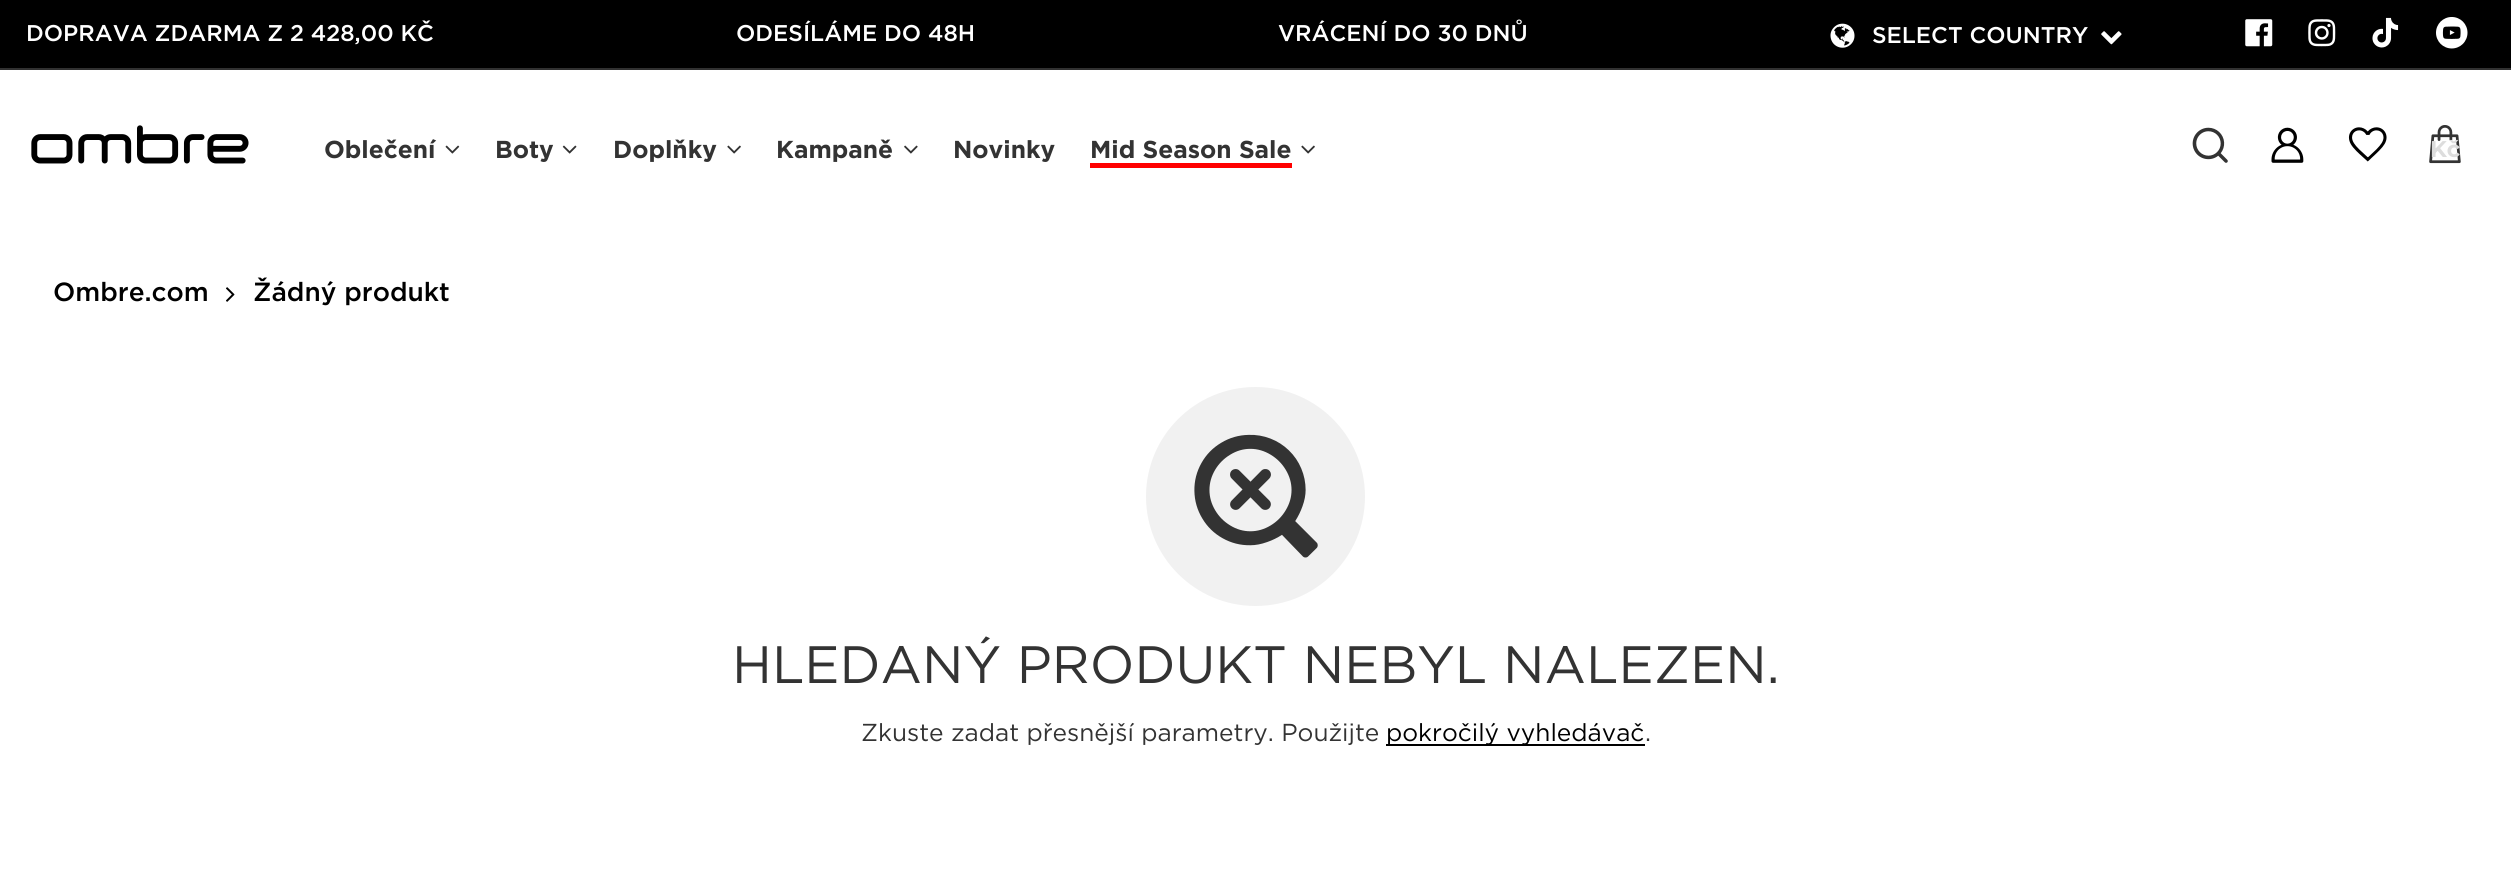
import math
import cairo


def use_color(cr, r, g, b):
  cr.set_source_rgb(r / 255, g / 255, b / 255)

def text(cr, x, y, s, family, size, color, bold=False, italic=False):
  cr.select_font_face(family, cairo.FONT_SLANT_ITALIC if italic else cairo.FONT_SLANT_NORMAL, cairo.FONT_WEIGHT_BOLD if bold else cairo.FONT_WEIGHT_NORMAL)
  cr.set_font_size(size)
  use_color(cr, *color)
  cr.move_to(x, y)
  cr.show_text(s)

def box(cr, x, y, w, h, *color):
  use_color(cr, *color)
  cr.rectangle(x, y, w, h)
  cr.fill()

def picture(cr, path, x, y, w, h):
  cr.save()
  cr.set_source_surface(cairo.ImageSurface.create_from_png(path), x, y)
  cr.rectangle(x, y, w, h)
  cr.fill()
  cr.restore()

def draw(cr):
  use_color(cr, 255, 255, 255)
  cr.paint()
  box(cr, 0, 0, 2511, 68, 0, 0, 0)
  box(cr, 0, 68, 2511, 2, 49, 49, 49)
  picture(cr, "img_01.png", 1830, 23, 25, 25)
  picture(cr, "img_02.png", 2101, 31, 21, 14)
  picture(cr, "img_03.png", 2245, 19, 28, 28)
  picture(cr, "img_04.png", 2308, 19, 28, 28)
  picture(cr, "img_05.png", 2372, 17, 27, 31)
  picture(cr, "img_06.png", 2436, 17, 32, 32)
  picture(cr, "img_07.png", 31, 125, 218, 39)
  picture(cr, "img_08.png", 445, 145, 15, 9)
  picture(cr, "img_09.png", 562, 145, 15, 9)
  picture(cr, "img_10.png", 727, 145, 14, 9)
  picture(cr, "img_11.png", 904, 145, 14, 9)
  box(cr, 1090, 163, 202, 5, 255, 0, 0)
  picture(cr, "img_10.png", 1301, 145, 14, 9)
  picture(cr, "img_12.png", 2192, 127, 36, 36)
  picture(cr, "img_13.png", 2271, 127, 33, 36)
  picture(cr, "img_14.png", 2348, 127, 39, 35)
  picture(cr, "img_15.png", 2429, 125, 32, 39)
  picture(cr, "img_16.png", 226, 287, 9, 15)
  use_color(cr, 241, 241, 241)
  cr.arc(1255.5, 496.5, 109.5, 0, 2 * math.pi)
  cr.fill()
  picture(cr, "img_17.png", 1194, 434, 124, 124)
  box(cr, 1386, 744, 259, 2, 0, 0, 0)
  text(cr, 26, 41, "DOPRAVA ZDARMA Z 2 428,00 KČ", "Gotham Medium", 22.75, (255, 255, 255))
  text(cr, 736, 41, "ODESÍLÁME DO 48H", "Gotham Medium", 22.75, (255, 255, 255))
  text(cr, 1278, 41, "VRÁCENÍ DO 30 DNŮ", "Gotham Medium", 22.75, (255, 255, 255))
  text(cr, 1872, 43, "SELECT COUNTRY", "Gotham Medium", 22.75, (255, 255, 255))
  text(cr, 324, 158, "Oblečení", "Gotham", 24.5, (51, 51, 51), bold=True)
  text(cr, 495, 158, "Boty", "Gotham", 24.5, (51, 51, 51), bold=True)
  text(cr, 613, 158, "Doplňky", "Gotham", 24.5, (51, 51, 51), bold=True)
  text(cr, 776, 158, "Kampaně", "Gotham", 24.5, (51, 51, 51), bold=True)
  text(cr, 953, 158, "Novinky", "Gotham", 24.5, (51, 51, 51), bold=True)
  text(cr, 1090, 158, "Mid Season Sale", "Gotham", 24.5, (51, 51, 51), bold=True)
  text(cr, 2430, 157, "Kč", "Montserrat", 22.75, (221, 221, 221), bold=True)
  text(cr, 53, 301, "Ombre.com", "Gotham Medium", 26.25, (0, 0, 0))
  text(cr, 253, 301, "Žádný produkt", "Gotham Medium", 26.25, (0, 0, 0))
  text(cr, 732, 683, "HLEDANÝ PRODUKT NEBYL NALEZEN.", "Gotham", 52.5, (51, 51, 51))
  text(cr, 861, 741, "Zkuste zadat přesnější parametry. Použijte", "Gotham", 24.5, (51, 51, 51))
  text(cr, 1386, 741, "pokročilý vyhledávač", "Gotham", 24.5, (0, 0, 0))
  text(cr, 1645, 741, ".", "Gotham", 24.5, (51, 51, 51))


surface = cairo.ImageSurface(cairo.FORMAT_RGB24, 2511, 883)
cr = cairo.Context(surface)
options = cairo.FontOptions()
options.set_hint_metrics(cairo.HINT_METRICS_OFF)
options.set_hint_style(cairo.HINT_STYLE_NONE)
cr.set_font_options(options)
cr.set_miter_limit(4)
draw(cr)
surface.write_to_png("out.png")
